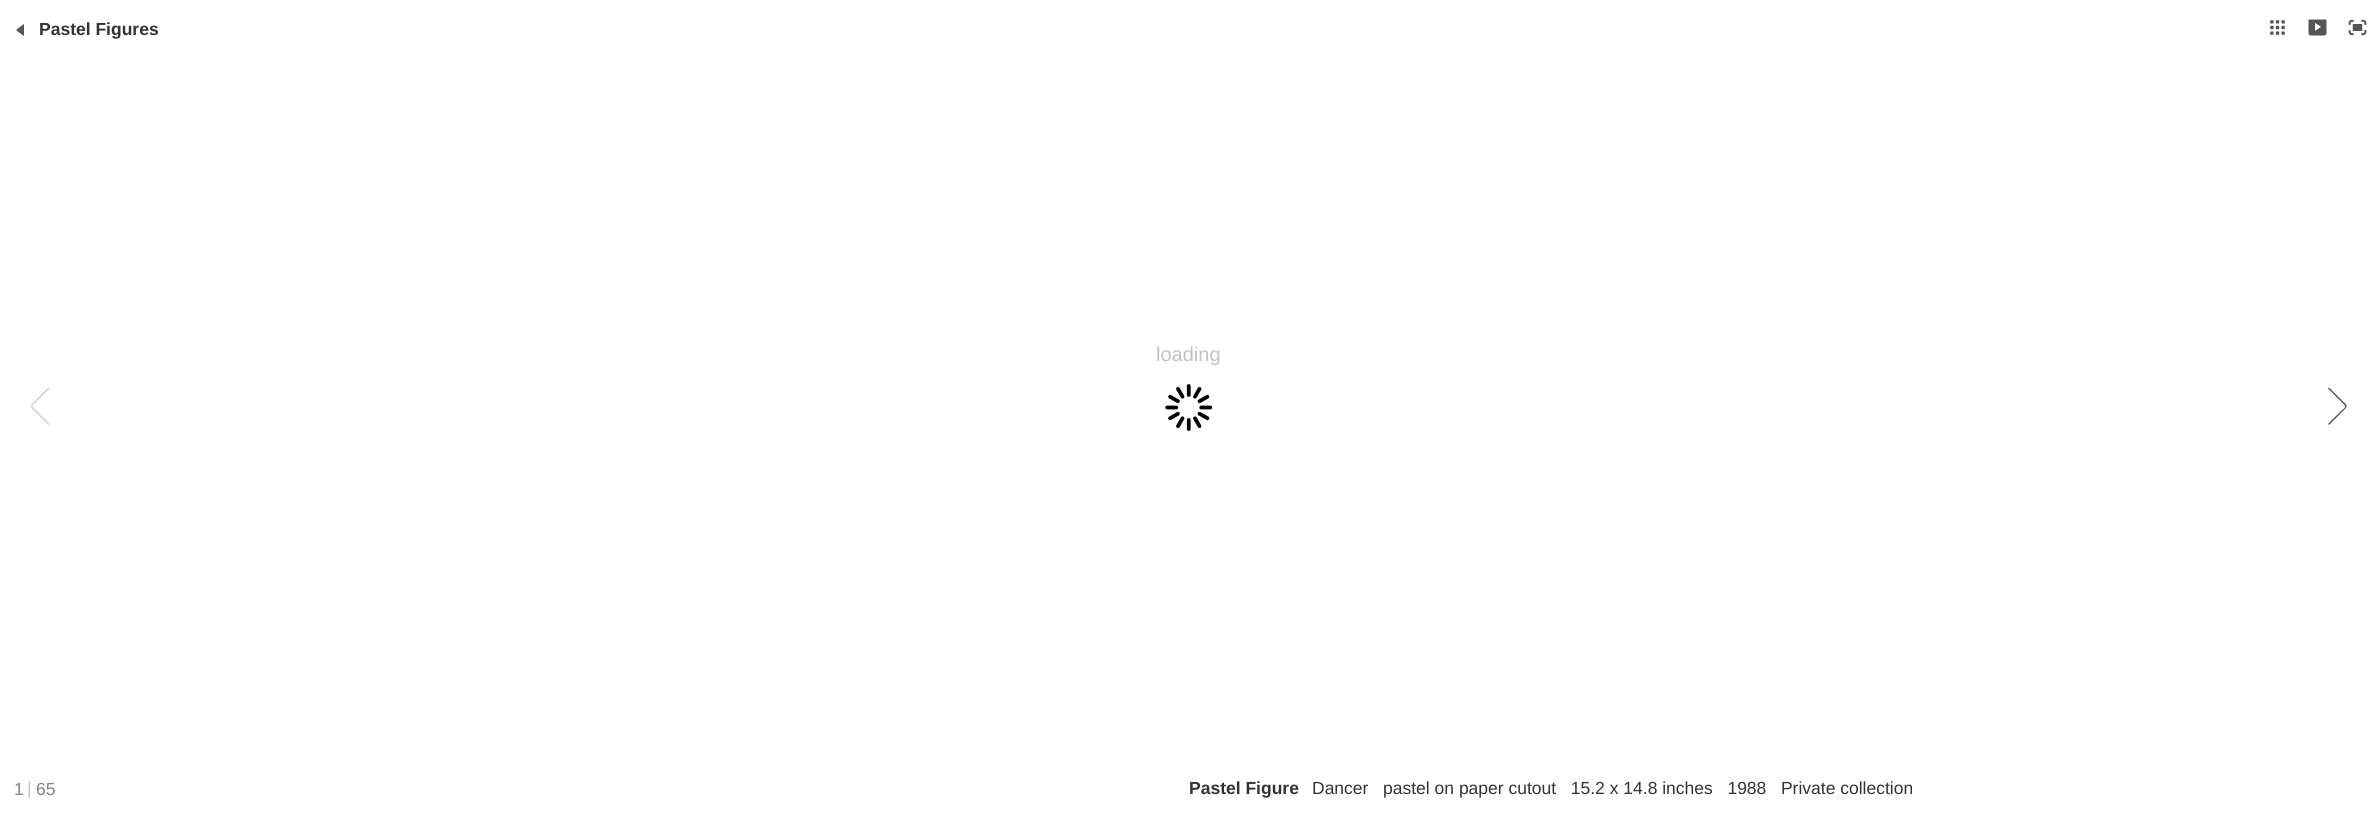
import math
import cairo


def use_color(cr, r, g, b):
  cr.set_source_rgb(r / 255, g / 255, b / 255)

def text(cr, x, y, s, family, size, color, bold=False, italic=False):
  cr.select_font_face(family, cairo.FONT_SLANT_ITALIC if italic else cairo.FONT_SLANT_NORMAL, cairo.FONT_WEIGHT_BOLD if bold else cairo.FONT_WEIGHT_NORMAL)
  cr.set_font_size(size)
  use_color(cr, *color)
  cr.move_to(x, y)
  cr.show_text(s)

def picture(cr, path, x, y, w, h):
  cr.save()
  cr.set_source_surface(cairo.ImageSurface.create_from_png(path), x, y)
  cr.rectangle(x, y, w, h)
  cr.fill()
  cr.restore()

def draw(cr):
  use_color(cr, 255, 255, 255)
  cr.paint()
  use_color(cr, 85, 85, 85)
  cr.new_path()
  cr.move_to(24, 36)
  cr.curve_to(14, 28.5, 14, 31.5, 24, 24)
  cr.close_path()
  cr.fill()
  picture(cr, "img_01.png", 2270, 20, 15, 15)
  picture(cr, "img_02.png", 2308, 19, 19, 17)
  picture(cr, "img_03.png", 2348, 19, 19, 17)
  use_color(cr, 204, 204, 204)
  cr.new_path()
  cr.move_to(48.5, 425)
  cr.line_to(31.5, 408)
  cr.curve_to(29.5, 405.5, 33, 403, 34.5, 401.5)
  cr.line_to(48.5, 387.5)
  cr.line_to(49.5, 388.5)
  cr.line_to(38.5, 399.5)
  cr.curve_to(32, 406, 30, 404.5, 35.5, 410)
  cr.line_to(49.5, 424)
  cr.close_path()
  cr.fill()
  use_color(cr, 85, 85, 85)
  cr.new_path()
  cr.move_to(2329, 387.5)
  cr.line_to(2343, 401.5)
  cr.curve_to(2344.5, 403, 2348, 405, 2346, 408)
  cr.line_to(2329, 425)
  cr.line_to(2328, 424)
  cr.line_to(2339, 413)
  cr.curve_to(2345.5, 406.5, 2347.5, 408, 2342, 402.5)
  cr.line_to(2328, 388.5)
  cr.close_path()
  cr.fill()
  picture(cr, "img_04.png", 1165, 384, 48, 47)
  text(cr, 39, 35, "Pastel Figures", "Liberation Sans", 17.5, (51, 51, 51), bold=True)
  text(cr, 1156, 361, "loading", "Liberation Sans", 20, (194, 194, 194))
  text(cr, 14, 795, "1", "Liberation Sans", 17.5, (133, 133, 133))
  text(cr, 27, 794, "|", "Liberation Sans", 17.5, (194, 194, 194))
  text(cr, 36, 795, "65", "Liberation Sans", 17.5, (133, 133, 133))
  text(cr, 1189, 794, "Pastel Figure", "Liberation Sans", 17.5, (51, 51, 51), bold=True)
  text(cr, 1312, 794, "Dancer   pastel on paper cutout   15.2 x 14.8 inches   1988   Private collection", "Liberation Sans", 17.5, (51, 51, 51))


surface = cairo.ImageSurface(cairo.FORMAT_RGB24, 2377, 815)
cr = cairo.Context(surface)
options = cairo.FontOptions()
options.set_hint_metrics(cairo.HINT_METRICS_OFF)
options.set_hint_style(cairo.HINT_STYLE_NONE)
cr.set_font_options(options)
cr.set_miter_limit(4)
draw(cr)
surface.write_to_png("out.png")
